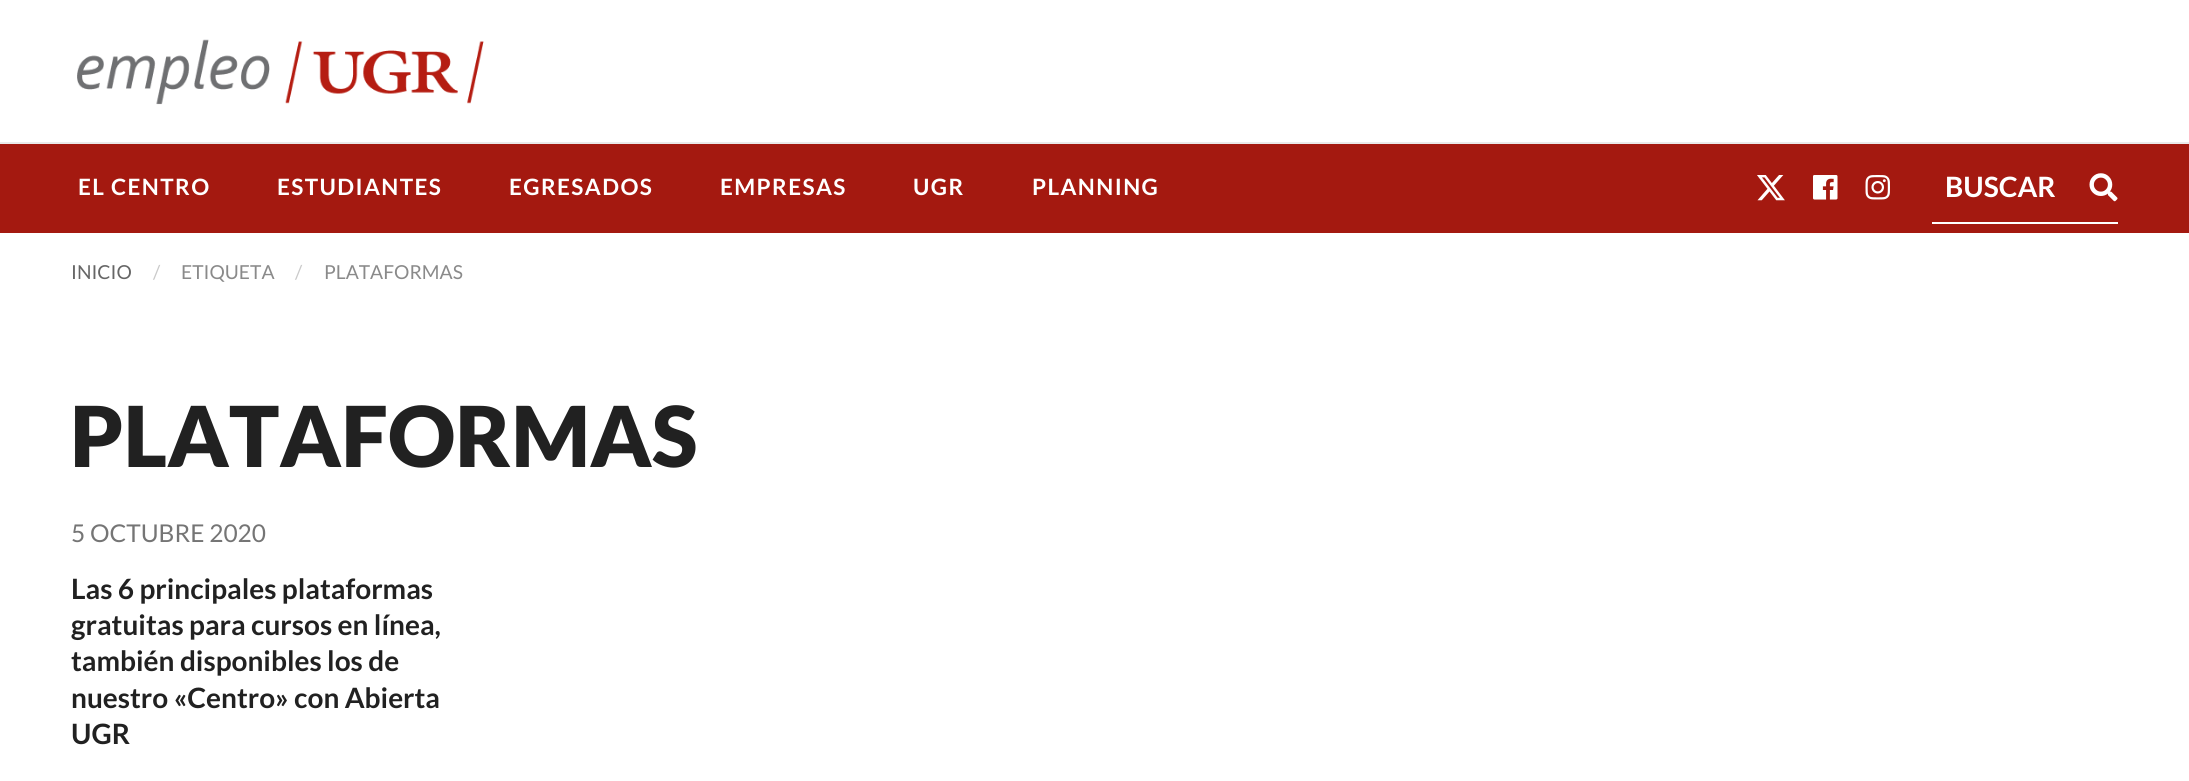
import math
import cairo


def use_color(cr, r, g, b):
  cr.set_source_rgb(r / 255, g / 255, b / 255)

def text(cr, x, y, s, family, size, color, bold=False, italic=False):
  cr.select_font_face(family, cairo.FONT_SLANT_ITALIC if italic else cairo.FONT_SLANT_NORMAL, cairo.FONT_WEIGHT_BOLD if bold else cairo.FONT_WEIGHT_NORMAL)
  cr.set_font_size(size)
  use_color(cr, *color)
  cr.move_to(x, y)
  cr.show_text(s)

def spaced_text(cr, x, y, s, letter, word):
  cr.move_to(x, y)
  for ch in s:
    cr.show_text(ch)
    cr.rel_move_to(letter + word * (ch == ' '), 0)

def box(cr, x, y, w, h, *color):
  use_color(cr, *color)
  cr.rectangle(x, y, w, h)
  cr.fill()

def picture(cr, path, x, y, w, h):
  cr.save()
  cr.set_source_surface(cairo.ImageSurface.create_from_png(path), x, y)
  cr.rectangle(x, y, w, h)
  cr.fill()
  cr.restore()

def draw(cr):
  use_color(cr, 255, 255, 255)
  cr.paint()
  picture(cr, "img_01.png", 77, 39, 407, 66)
  box(cr, 0, 142, 2189, 2, 234, 234, 234)
  box(cr, 0, 144, 2189, 89, 164, 25, 16)
  picture(cr, "img_02.png", 1757, 175, 28, 26)
  picture(cr, "img_03.png", 1813, 175, 25, 25)
  picture(cr, "img_04.png", 1865, 175, 25, 25)
  box(cr, 1932, 222, 186, 2, 255, 255, 255)
  picture(cr, "img_05.png", 2089, 173, 29, 29)
  cr.select_font_face("Lato", cairo.FONT_SLANT_NORMAL, cairo.FONT_WEIGHT_BOLD)
  cr.set_font_size(22.5)
  spaced_text(cr, 78, 195, "EL CENTRO", 1.4, 0)
  spaced_text(cr, 277, 195, "ESTUDIANTES", 1.4, 0)
  spaced_text(cr, 509, 195, "EGRESADOS", 1.4, 0)
  spaced_text(cr, 720, 195, "EMPRESAS", 1.4, 0)
  spaced_text(cr, 913, 195, "UGR", 1.4, 0)
  spaced_text(cr, 1032, 195, "PLANNING", 1.4, 0)
  text(cr, 1945, 197, "BUSCAR", "Lato", 28, (255, 255, 255), bold=True)
  text(cr, 71, 279, "INICIO", "Lato", 19.25, (102, 102, 102))
  text(cr, 153, 279, "/", "Lato", 19.25, (202, 202, 202))
  text(cr, 181, 279, "ETIQUETA", "Lato", 19.25, (138, 138, 138))
  text(cr, 295, 279, "/", "Lato", 19.25, (202, 202, 202))
  text(cr, 324, 279, "PLATAFORMAS", "Lato", 19.25, (138, 138, 138))
  text(cr, 70, 467, "PLATAFORMAS", "Lato Black", 84, (33, 33, 33))
  text(cr, 71, 542, "5 OCTUBRE 2020", "Lato", 24.5, (117, 117, 117))
  text(cr, 71, 599, "Las 6 principales plataformas", "Lato", 28, (33, 33, 33), bold=True)
  text(cr, 71, 635, "gratuitas para cursos en línea,", "Lato", 28, (33, 33, 33), bold=True)
  text(cr, 71, 671, "también disponibles los de", "Lato", 28, (33, 33, 33), bold=True)
  text(cr, 71, 708, "nuestro «Centro» con Abierta", "Lato", 28, (33, 33, 33), bold=True)
  text(cr, 71, 744, "UGR", "Lato", 28, (33, 33, 33), bold=True)


surface = cairo.ImageSurface(cairo.FORMAT_RGB24, 2189, 781)
cr = cairo.Context(surface)
options = cairo.FontOptions()
options.set_hint_metrics(cairo.HINT_METRICS_OFF)
options.set_hint_style(cairo.HINT_STYLE_NONE)
cr.set_font_options(options)
cr.set_miter_limit(4)
draw(cr)
surface.write_to_png("out.png")
